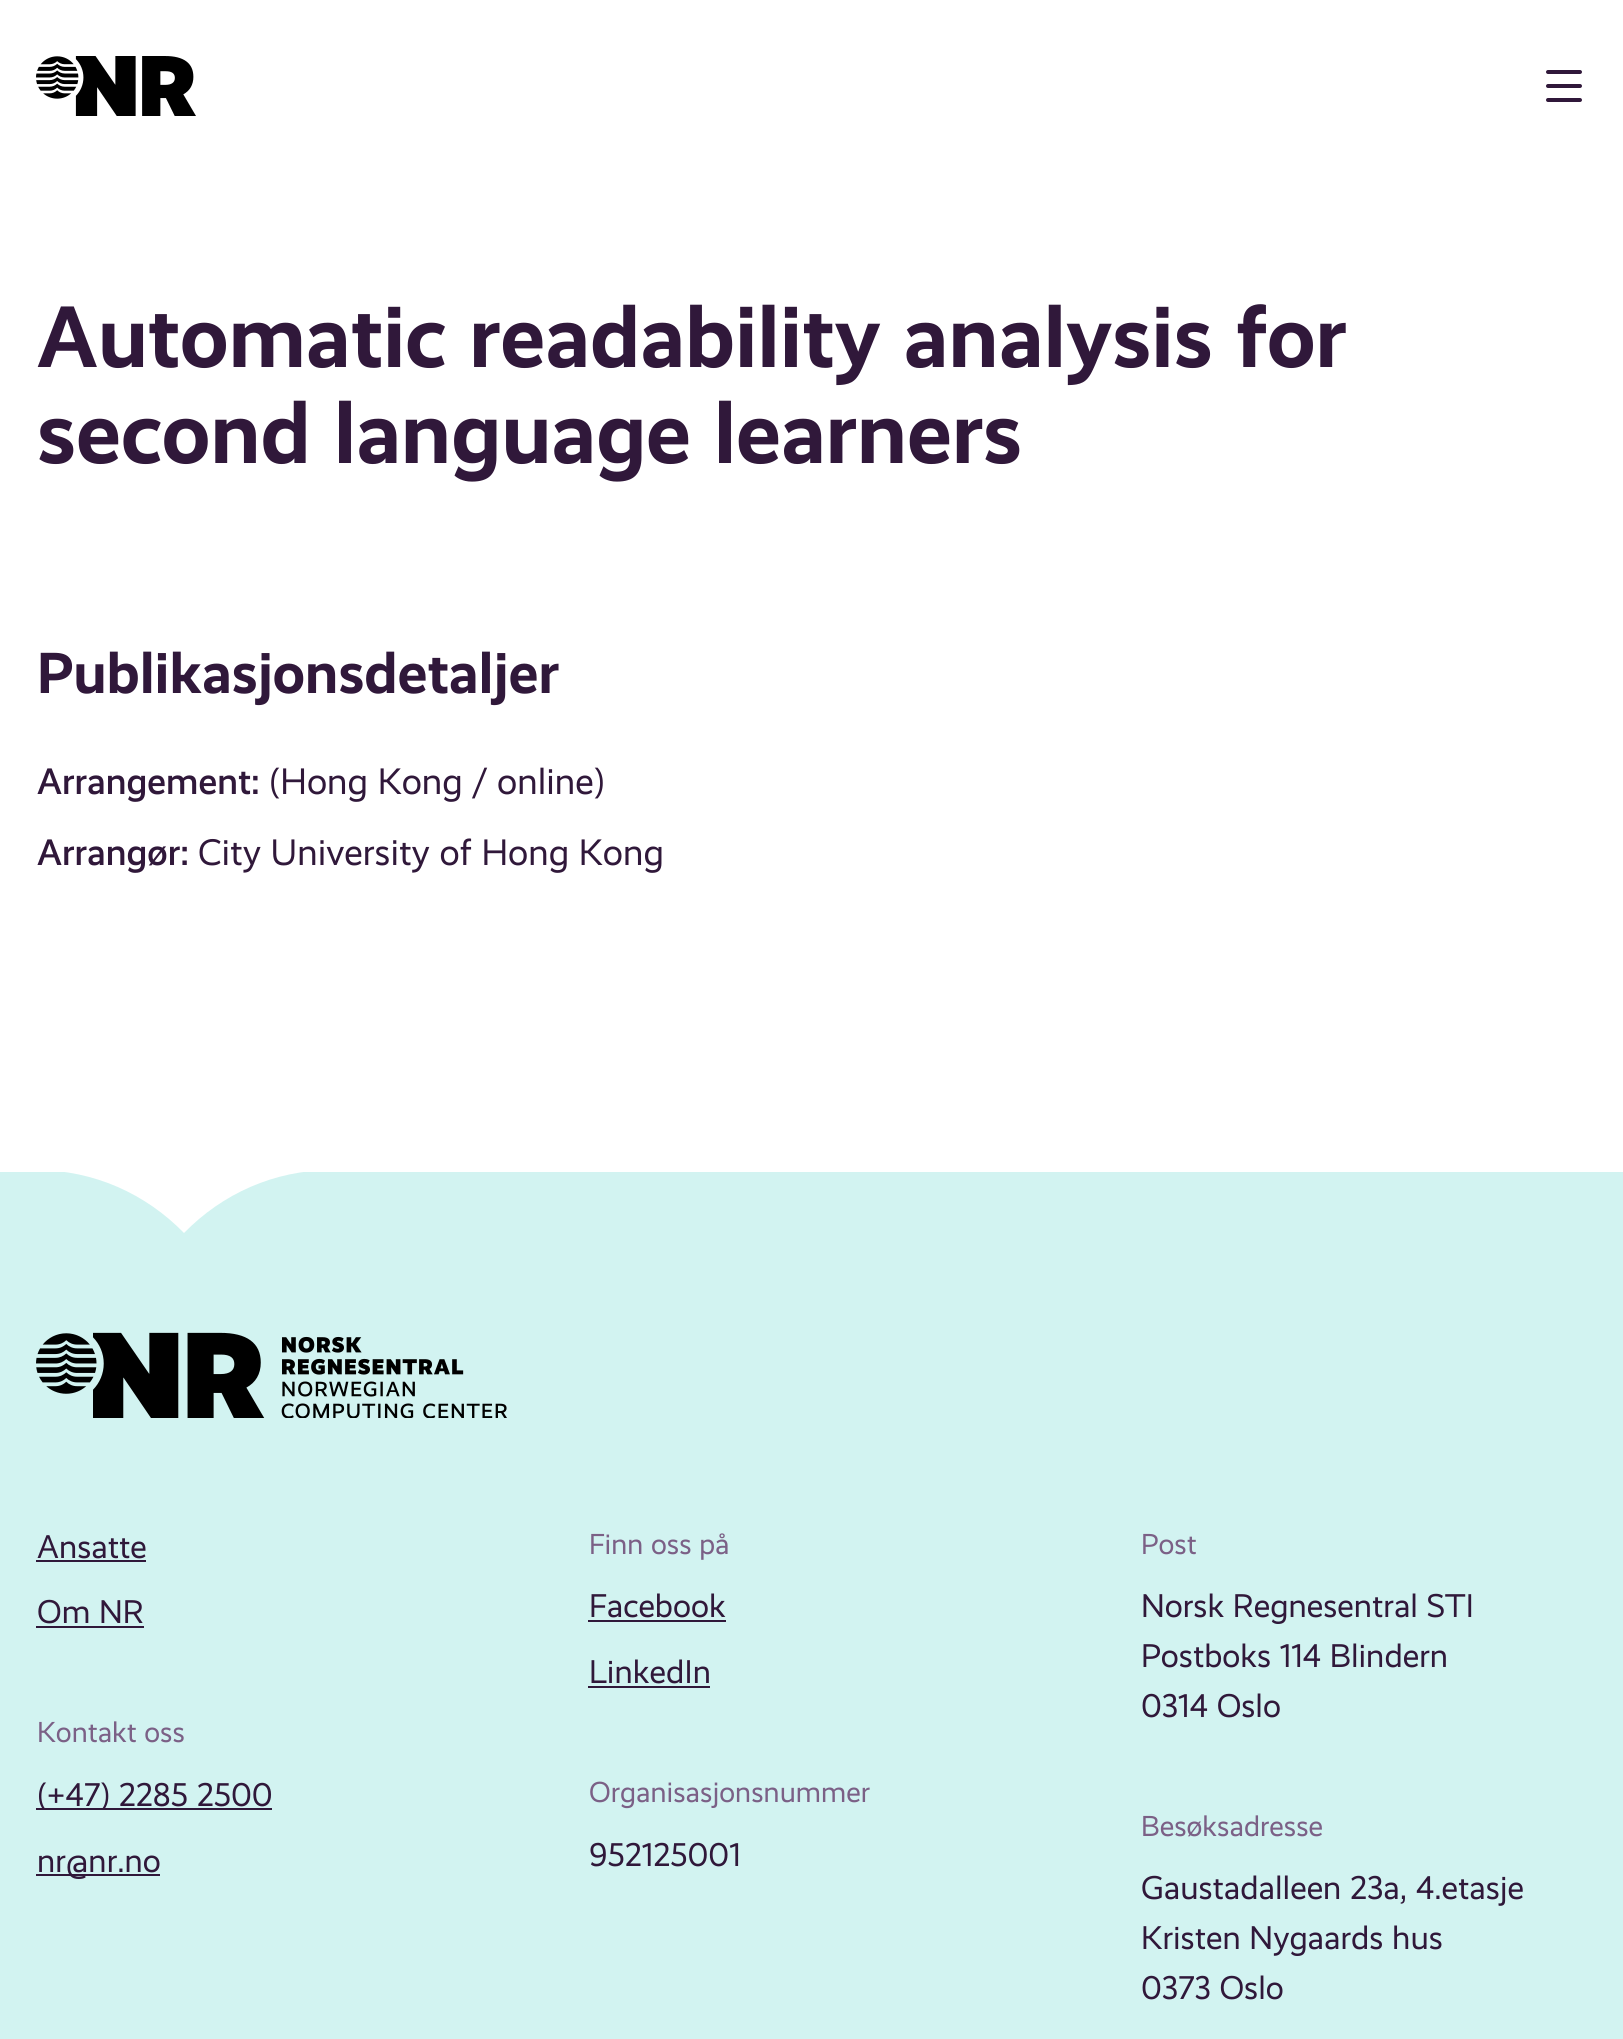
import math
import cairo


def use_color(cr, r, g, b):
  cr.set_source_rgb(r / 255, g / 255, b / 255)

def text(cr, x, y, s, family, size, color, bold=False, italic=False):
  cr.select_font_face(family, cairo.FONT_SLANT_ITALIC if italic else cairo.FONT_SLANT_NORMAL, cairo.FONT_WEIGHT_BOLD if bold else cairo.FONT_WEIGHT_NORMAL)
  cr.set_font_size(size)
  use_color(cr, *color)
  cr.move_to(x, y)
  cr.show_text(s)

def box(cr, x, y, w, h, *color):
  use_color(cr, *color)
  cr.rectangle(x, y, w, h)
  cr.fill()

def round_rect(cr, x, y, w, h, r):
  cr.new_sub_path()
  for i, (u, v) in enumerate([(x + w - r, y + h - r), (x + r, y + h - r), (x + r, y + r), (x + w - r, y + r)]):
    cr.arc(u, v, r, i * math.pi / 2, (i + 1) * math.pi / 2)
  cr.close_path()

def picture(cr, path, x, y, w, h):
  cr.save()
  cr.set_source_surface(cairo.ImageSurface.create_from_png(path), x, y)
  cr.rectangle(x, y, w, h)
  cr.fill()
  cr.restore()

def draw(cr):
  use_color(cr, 255, 255, 255)
  cr.paint()
  picture(cr, "img_01.png", 36, 56, 160, 60)
  use_color(cr, 48, 24, 58)
  round_rect(cr, 1546, 70, 36, 4, 2)
  cr.fill()
  round_rect(cr, 1546, 84, 36, 4, 2)
  cr.fill()
  round_rect(cr, 1546, 98, 36, 4, 2)
  cr.fill()
  box(cr, 0, 1172, 1623, 867, 210, 243, 241)
  use_color(cr, 255, 255, 255)
  cr.new_path()
  cr.move_to(184, 1233)
  cr.curve_to(222, 1194, 274, 1170, 332, 1170)
  cr.line_to(36, 1170)
  cr.curve_to(94, 1170, 146, 1194, 184, 1233)
  cr.close_path()
  cr.fill()
  picture(cr, "img_02.png", 36, 1332, 471, 86)
  box(cr, 36, 1560, 110, 2, 48, 24, 58)
  box(cr, 36, 1626, 108, 2, 48, 24, 58)
  box(cr, 36, 1808, 236, 2, 48, 24, 58)
  box(cr, 36, 1874, 124, 2, 48, 24, 58)
  box(cr, 588, 1620, 138, 2, 48, 24, 58)
  box(cr, 588, 1686, 122, 2, 48, 24, 58)
  text(cr, 37, 367, "Automatic readability analysis for", "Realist", 87.75, (48, 24, 58), bold=True)
  text(cr, 37, 463, "second language learners", "Realist", 87.75, (48, 24, 58), bold=True)
  text(cr, 37, 693, "Publikasjonsdetaljer", "Realist", 58.25, (48, 24, 58), bold=True)
  text(cr, 37, 794, "Arrangement:", "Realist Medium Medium", 37.1, (48, 24, 58))
  text(cr, 269, 794, "(Hong Kong / online)", "Realist", 37.1, (48, 24, 58))
  text(cr, 37, 865, "Arrangør:", "Realist Medium Medium", 37.1, (48, 24, 58))
  text(cr, 198, 865, "City University of Hong Kong", "Realist", 37.1, (48, 24, 58))
  text(cr, 37, 1558, "Ansatte", "Realist", 33.1, (48, 24, 58))
  text(cr, 37, 1623, "Om NR", "Realist", 33.1, (48, 24, 58))
  text(cr, 37, 1742, "Kontakt oss", "Realist", 29.1, (123, 96, 134))
  text(cr, 37, 1806, "(+47) 2285 2500", "Realist", 33.1, (48, 24, 58))
  text(cr, 37, 1872, "nr@nr.no", "Realist", 33.1, (48, 24, 58))
  text(cr, 589, 1554, "Finn oss på", "Realist", 29.1, (123, 96, 134))
  text(cr, 589, 1617, "Facebook", "Realist", 33.1, (48, 24, 58))
  text(cr, 589, 1683, "LinkedIn", "Realist", 33.1, (48, 24, 58))
  text(cr, 589, 1802, "Organisasjonsnummer", "Realist", 29.1, (123, 96, 134))
  text(cr, 589, 1866, "952125001", "Realist", 33.1, (48, 24, 58))
  text(cr, 1141, 1554, "Post", "Realist", 29.1, (123, 96, 134))
  text(cr, 1141, 1617, "Norsk Regnesentral STI", "Realist", 33.1, (48, 24, 58))
  text(cr, 1141, 1667, "Postboks 114 Blindern", "Realist", 33.1, (48, 24, 58))
  text(cr, 1141, 1717, "0314 Oslo", "Realist", 33.1, (48, 24, 58))
  text(cr, 1141, 1836, "Besøksadresse", "Realist", 29.1, (123, 96, 134))
  text(cr, 1141, 1899, "Gaustadalleen 23a, 4.etasje", "Realist", 33.1, (48, 24, 58))
  text(cr, 1141, 1949, "Kristen Nygaards hus", "Realist", 33.1, (48, 24, 58))
  text(cr, 1141, 1999, "0373 Oslo", "Realist", 33.1, (48, 24, 58))


surface = cairo.ImageSurface(cairo.FORMAT_RGB24, 1623, 2039)
cr = cairo.Context(surface)
options = cairo.FontOptions()
options.set_hint_metrics(cairo.HINT_METRICS_OFF)
options.set_hint_style(cairo.HINT_STYLE_NONE)
cr.set_font_options(options)
cr.set_miter_limit(4)
draw(cr)
surface.write_to_png("out.png")
